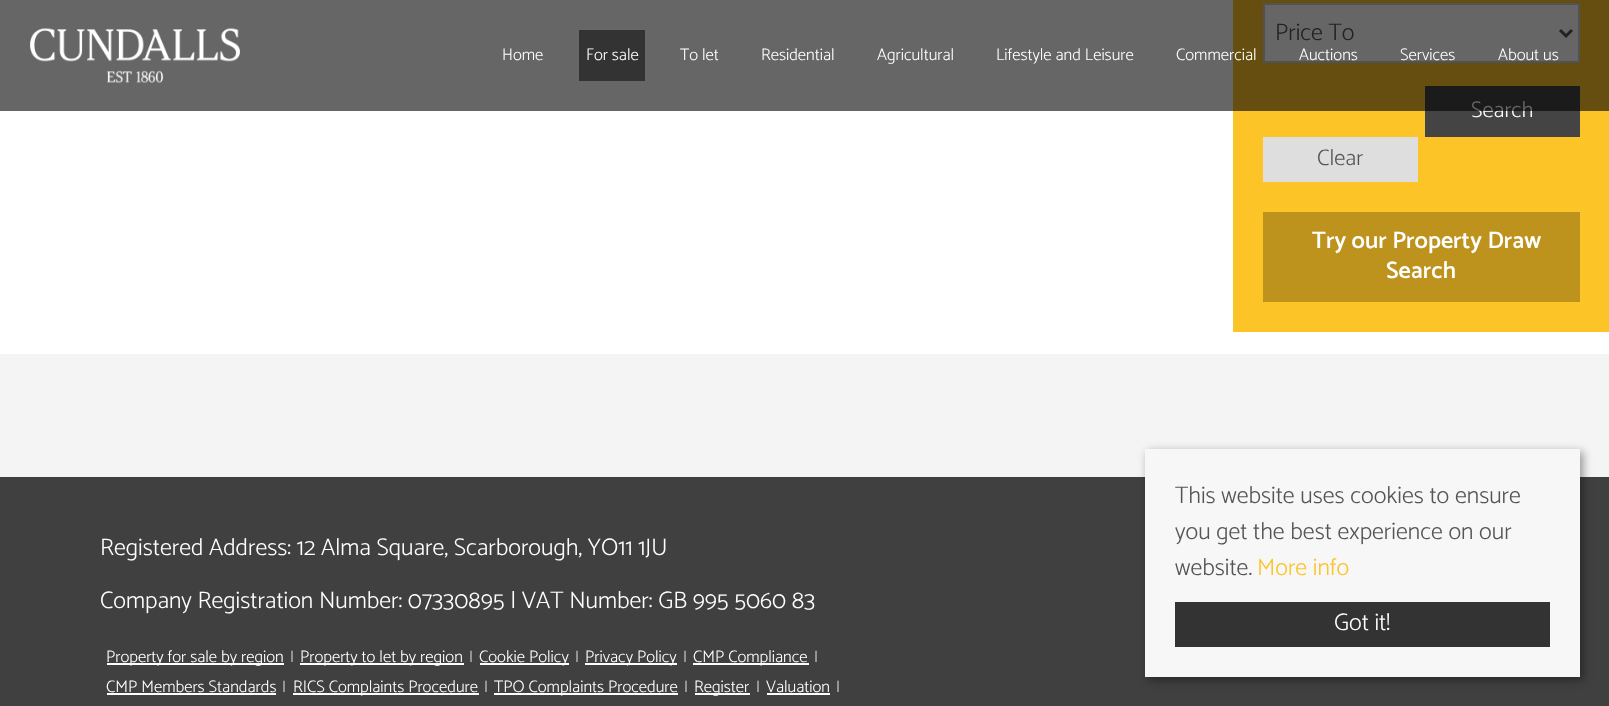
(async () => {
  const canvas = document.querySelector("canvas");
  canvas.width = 1609;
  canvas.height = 706;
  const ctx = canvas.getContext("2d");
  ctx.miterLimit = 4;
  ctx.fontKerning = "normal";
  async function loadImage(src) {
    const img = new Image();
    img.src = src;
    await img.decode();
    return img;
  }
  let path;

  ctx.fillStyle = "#ffffff";
  ctx.fillRect(0, 0, 1609, 706);
  ctx.fillStyle = "#fcc427";
  ctx.fillRect(1233, 0, 376, 332);
  ctx.fillStyle = "#ffffff";
  ctx.beginPath();
  ctx.rect(1264, 4, 315, 58);
  ctx.fill();
  ctx.strokeStyle = "#cccccc";
  ctx.lineWidth = 2;
  ctx.stroke();
  path = new Path2D("M1560 30L1566 36L1572 30");
  ctx.strokeStyle = "#555555";
  ctx.lineWidth = 3;
  ctx.stroke(path);
  for (const [x, y, w, h, color] of [
    [1425, 86, 155, 51, "#444444"],
    [1263, 137, 155, 45, "#dedede"],
    [1263, 212, 317, 90, "#bd931d"],
    [0, 354, 1609, 123, "#f4f4f4"],
    [0, 477, 1609, 229, "#404040"],
    [107, 663, 177, 2, "#ffffff"],
    [300, 663, 164, 2, "#ffffff"],
    [480, 663, 89, 2, "#ffffff"],
    [585, 663, 92, 2, "#ffffff"],
    [693, 663, 116, 2, "#ffffff"],
    [107, 693, 169, 2, "#ffffff"],
    [293, 693, 186, 2, "#ffffff"],
    [494, 693, 184, 2, "#ffffff"],
    [695, 693, 55, 2, "#ffffff"],
    [767, 693, 63, 2, "#ffffff"],
  ]) {
    ctx.fillStyle = color;
    ctx.fillRect(x, y, w, h);
  }
  ctx.fillStyle = "rgba(0, 0, 0, 0.4)";
  ctx.filter = "blur(5px)";
  ctx.beginPath();
  ctx.rect(1148, 452, 435, 228);
  ctx.fill();
  ctx.filter = "none";
  ctx.fillStyle = "#f7f7f7";
  ctx.fillRect(1145, 449, 435, 228);
  ctx.fillStyle = "#333333";
  ctx.fillRect(1175, 602, 375, 45);
  ctx.font = "300 24px Catamaran";
  ctx.fillStyle = "#555555";
  ctx.fillText("Price To", 1275, 40);
  ctx.font = "300 22.5px Catamaran";
  ctx.fillStyle = "#ffffff";
  ctx.fillText("Search", 1471, 117);
  ctx.fillStyle = "#555555";
  ctx.fillText("Clear", 1317, 165);
  ctx.font = "600 24px Catamaran";
  ctx.fillStyle = "#ffffff";
  ctx.fillText("Try our Property Draw", 1312, 248);
  ctx.fillText("Search", 1386, 278);
  ctx.fillStyle = "rgba(0, 0, 0, 0.6)";
  ctx.fillRect(0, 0, 1609, 111);
  ctx.drawImage(await loadImage("img/1.png"), 30, 28, 210, 55);
  ctx.font = "300 16.75px Catamaran";
  ctx.fillStyle = "#ffffff";
  ctx.fillText("Home", 502, 60);
  ctx.fillStyle = "#333333";
  ctx.fillRect(579, 30, 66, 51);
  ctx.fillStyle = "#ffffff";
  for (const [text, x, y] of [
    ["For sale", 586, 60],
    ["To let", 680, 60],
    ["Residential", 761, 60],
    ["Agricultural", 877, 60],
    ["Lifestyle and Leisure", 996, 60],
    ["Commercial", 1176, 60],
    ["Auctions", 1299, 60],
    ["Services", 1400, 60],
    ["About us", 1498, 60],
  ]) {
    ctx.fillText(text, x, y);
  }
  ctx.font = "300 24px Catamaran";
  ctx.fillText("Registered Address: 12 Alma Square, Scarborough, YO11 1JU", 100, 555);
  ctx.fillText("Company Registration Number: 07330895 | VAT Number: GB 995 5060 83", 100, 608);
  ctx.font = "300 16.75px Catamaran";
  ctx.fillText("Property for sale by region", 106, 662);
  ctx.font = "300 16px Catamaran";
  ctx.fillStyle = "#d9d9d9";
  ctx.fillText("|", 290, 662);
  ctx.font = "300 16.75px Catamaran";
  ctx.fillStyle = "#ffffff";
  ctx.fillText("Property to let by region", 300, 662);
  ctx.font = "300 16px Catamaran";
  ctx.fillStyle = "#d9d9d9";
  ctx.fillText("|", 469, 662);
  ctx.font = "300 16.75px Catamaran";
  ctx.fillStyle = "#ffffff";
  ctx.fillText("Cookie Policy", 479, 662);
  ctx.font = "300 16px Catamaran";
  ctx.fillStyle = "#d9d9d9";
  ctx.fillText("|", 575, 662);
  ctx.font = "300 16.75px Catamaran";
  ctx.fillStyle = "#ffffff";
  ctx.fillText("Privacy Policy", 585, 662);
  ctx.font = "300 16px Catamaran";
  ctx.fillStyle = "#d9d9d9";
  ctx.fillText("|", 683, 662);
  ctx.font = "300 16.75px Catamaran";
  ctx.fillStyle = "#ffffff";
  ctx.fillText("CMP Compliance", 693, 662);
  ctx.font = "300 16px Catamaran";
  ctx.fillStyle = "#d9d9d9";
  ctx.fillText("|", 814, 662);
  ctx.font = "300 16.75px Catamaran";
  ctx.fillStyle = "#ffffff";
  ctx.fillText("CMP Members Standards", 106, 692);
  ctx.font = "300 16px Catamaran";
  ctx.fillStyle = "#d9d9d9";
  ctx.fillText("|", 282, 692);
  ctx.font = "300 16.75px Catamaran";
  ctx.fillStyle = "#ffffff";
  ctx.fillText("RICS Complaints Procedure", 293, 692);
  ctx.font = "300 16px Catamaran";
  ctx.fillStyle = "#d9d9d9";
  ctx.fillText("|", 484, 692);
  ctx.font = "300 16.75px Catamaran";
  ctx.fillStyle = "#ffffff";
  ctx.fillText("TPO Complaints Procedure", 494, 692);
  ctx.font = "300 16px Catamaran";
  ctx.fillStyle = "#d9d9d9";
  ctx.fillText("|", 684, 692);
  ctx.font = "300 16.75px Catamaran";
  ctx.fillStyle = "#ffffff";
  ctx.fillText("Register", 694, 692);
  ctx.font = "300 16px Catamaran";
  ctx.fillStyle = "#d9d9d9";
  ctx.fillText("|", 756, 692);
  ctx.font = "300 16.75px Catamaran";
  ctx.fillStyle = "#ffffff";
  ctx.fillText("Valuation", 766, 692);
  ctx.font = "300 16px Catamaran";
  ctx.fillStyle = "#d9d9d9";
  ctx.fillText("|", 836, 692);
  ctx.font = "300 24px Catamaran";
  ctx.fillStyle = "#555555";
  for (const [text, x, y] of [
    ["This website uses cookies to ensure", 1175, 503],
    ["you get the best experience on our", 1175, 539],
    ["website.", 1175, 575],
  ]) {
    ctx.fillText(text, x, y);
  }
  ctx.fillStyle = "#fcc427";
  ctx.fillText("More info", 1257, 575);
  ctx.fillStyle = "#ffffff";
  ctx.fillText("Got it!", 1334, 630);
})();
